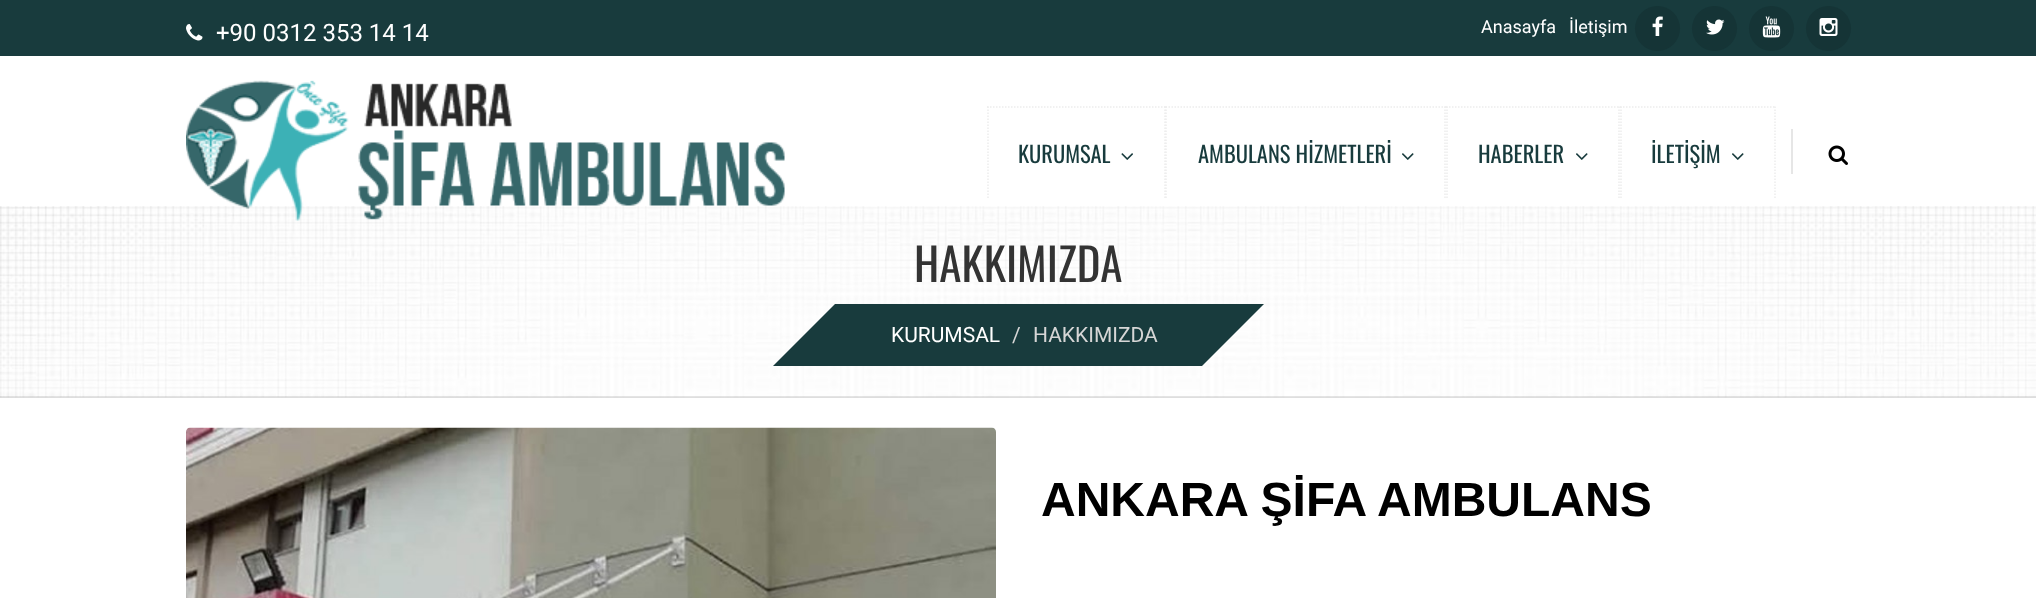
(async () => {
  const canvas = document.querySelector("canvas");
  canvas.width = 2036;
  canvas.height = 598;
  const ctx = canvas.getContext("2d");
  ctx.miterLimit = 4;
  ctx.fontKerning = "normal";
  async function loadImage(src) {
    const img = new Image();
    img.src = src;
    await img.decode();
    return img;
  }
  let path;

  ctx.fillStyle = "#183b3d";
  ctx.fillRect(0, 0, 2036, 598);
  ctx.drawImage(await loadImage("img/1.png"), 186, 24, 17, 17);
  ctx.fillStyle = "#153436";
  ctx.beginPath();
  ctx.arc(1657.5, 28.5, 22.5, 0, Math.PI * 2);
  ctx.fill();
  ctx.drawImage(await loadImage("img/2.png"), 1652, 16, 11, 20);
  ctx.beginPath();
  ctx.arc(1714.5, 28.5, 22.5, 0, Math.PI * 2);
  ctx.fill();
  ctx.drawImage(await loadImage("img/3.png"), 1706, 19, 19, 16);
  ctx.beginPath();
  ctx.arc(1771.5, 28.5, 22.5, 0, Math.PI * 2);
  ctx.fill();
  ctx.drawImage(await loadImage("img/4.png"), 1762, 16, 19, 22);
  ctx.beginPath();
  ctx.arc(1828.5, 28.5, 22.5, 0, Math.PI * 2);
  ctx.fill();
  ctx.drawImage(await loadImage("img/5.png"), 1819, 18, 19, 18);
  ctx.fillStyle = "#ffffff";
  ctx.fillRect(0, 56, 2036, 150);
  ctx.fillStyle = "#f2f2f2";
  ctx.fillRect(0, 397, 2036, 1);
  ctx.drawImage(await loadImage("img/10.png"), 0, 206, 2036, 192);
  ctx.drawImage(await loadImage("img/6.png"), 186, 80, 599, 141);
  path = new Path2D("M987 107H1165.5");
  ctx.strokeStyle = "#ededed";
  ctx.lineWidth = 1.5;
  ctx.setLineDash([1.5, 1.5]);
  ctx.stroke(path);
  path = new Path2D("M1165 106.5V198");
  ctx.stroke(path);
  path = new Path2D("M988 106.5V198");
  ctx.stroke(path);
  ctx.drawImage(await loadImage("img/7.png"), 1121, 153, 12, 7);
  path = new Path2D("M1165.5 107H1446");
  ctx.stroke(path);
  path = new Path2D("M1445 106.5V198");
  ctx.stroke(path);
  path = new Path2D("M1166 106.5V198");
  ctx.stroke(path);
  ctx.drawImage(await loadImage("img/8.png"), 1402, 153, 12, 7);
  path = new Path2D("M1446 107H1620");
  ctx.stroke(path);
  path = new Path2D("M1619 106.5V198");
  ctx.stroke(path);
  path = new Path2D("M1447 106.5V198");
  ctx.stroke(path);
  ctx.drawImage(await loadImage("img/8.png"), 1576, 153, 12, 7);
  path = new Path2D("M1620 107H1776");
  ctx.stroke(path);
  path = new Path2D("M1775 106.5V198");
  ctx.stroke(path);
  path = new Path2D("M1621 106.5V198");
  ctx.stroke(path);
  ctx.drawImage(await loadImage("img/8.png"), 1732, 153, 12, 7);
  ctx.fillStyle = "#e6e6e6";
  ctx.fillRect(1791, 129, 2, 45);
  ctx.drawImage(await loadImage("img/9.png"), 1828, 145, 20, 20);
  ctx.fillStyle = "#ffffff";
  ctx.fillRect(0, 398, 2036, 200);
  ctx.fillStyle = "rgba(0, 0, 0, 0.1)";
  ctx.fillRect(0, 396, 2036, 2);
  ctx.fillStyle = "#183b3d";
  path = new Path2D("M835 304H1264L1202 366H773Z");
  ctx.fill(path);
  ctx.drawImage(await loadImage("img/11.png"), 186, 427, 810, 171);
  ctx.font = "24px Roboto";
  ctx.fillStyle = "#ffffff";
  ctx.fillText("+90 0312 353 14 14", 216, 41);
  ctx.font = "18px Roboto";
  ctx.fillText("Anasayfa", 1481, 33);
  ctx.fillText("İletişim", 1569, 33);
  ctx.font = "22.5px Oswald";
  ctx.fillStyle = "#183b3d";
  for (const [text, x, y] of [
    ["KURUMSAL", 1018, 163],
    ["AMBULANS HİZMETLERİ", 1198, 163],
    ["HABERLER", 1478, 163],
    ["İLETİŞİM", 1651, 163],
  ]) {
    ctx.fillText(text, x, y);
  }
  ctx.font = "45px Oswald";
  ctx.fillStyle = "#333333";
  ctx.fillText("HAKKIMIZDA", 914, 282);
  ctx.font = "21px Roboto";
  ctx.fillStyle = "#ffffff";
  ctx.fillText("KURUMSAL", 891, 342);
  ctx.fillStyle = "#d6d6d6";
  ctx.fillText("/", 1012, 342);
  ctx.fillText("HAKKIMIZDA", 1033, 342);
  ctx.font = "bold 48px Liberation Sans";
  ctx.fillStyle = "#000000";
  ctx.fillText("ANKARA ŞİFA AMBULANS", 1041, 516);
})();
